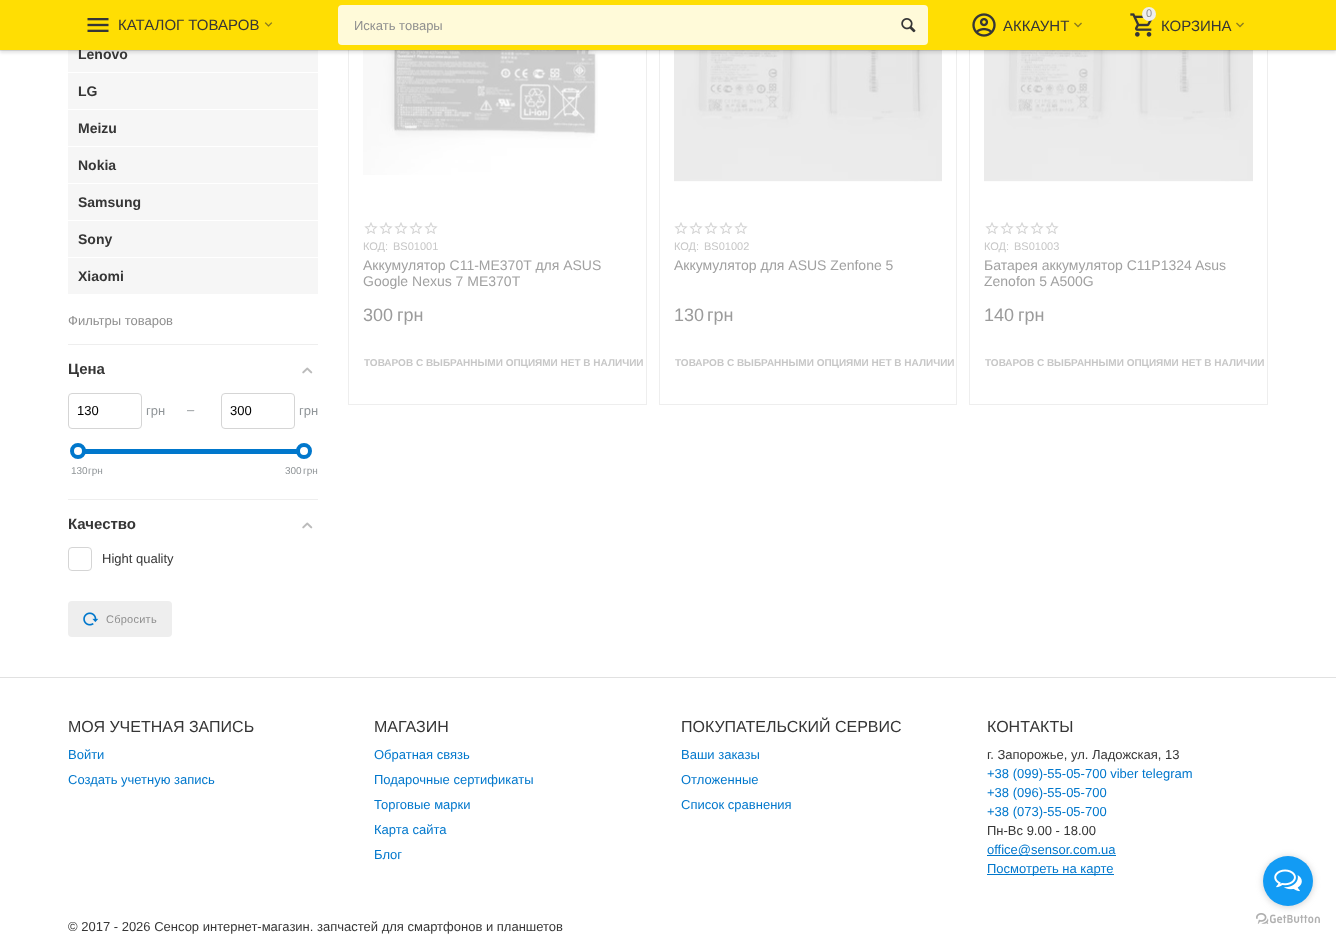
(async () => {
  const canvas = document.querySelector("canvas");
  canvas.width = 1336;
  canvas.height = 939;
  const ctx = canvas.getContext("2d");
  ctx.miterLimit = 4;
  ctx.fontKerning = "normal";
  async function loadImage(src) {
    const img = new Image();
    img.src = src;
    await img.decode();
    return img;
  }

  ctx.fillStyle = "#ffffff";
  ctx.fillRect(0, 0, 1336, 939);
  ctx.fillStyle = "#f6f6f6";
  ctx.fillRect(68, 50, 250, 244);
  ctx.strokeStyle = "#eeeeee";
  ctx.strokeRect(348.5, -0.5, 298, 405);
  ctx.drawImage(await loadImage("img/9.png"), 363, 50, 235, 125);
  ctx.strokeRect(659.5, -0.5, 297, 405);
  ctx.drawImage(await loadImage("img/11.png"), 674, 50, 268, 132);
  ctx.strokeRect(969.5, -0.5, 298, 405);
  ctx.drawImage(await loadImage("img/12.png"), 984, 50, 269, 132);
  ctx.fillStyle = "rgba(0, 0, 0, 0.1)";
  ctx.filter = "blur(1.5px)";
  ctx.beginPath();
  ctx.rect(0, 3, 1336, 50);
  ctx.fill();
  ctx.filter = "none";
  ctx.filter = "blur(0.5px)";
  ctx.beginPath();
  ctx.rect(0, 1, 1336, 50);
  ctx.fill();
  ctx.filter = "none";
  for (const [x, y, w, h, color] of [
    [68, 72, 250, 1, "#ffffff"],
    [68, 109, 250, 1, "#ffffff"],
    [68, 146, 250, 1, "#ffffff"],
    [68, 183, 250, 1, "#ffffff"],
    [68, 220, 250, 1, "#ffffff"],
    [68, 257, 250, 1, "#ffffff"],
    [68, 344, 250, 1, "#eeeeee"],
  ]) {
    ctx.fillStyle = color;
    ctx.fillRect(x, y, w, h);
  }
  ctx.drawImage(await loadImage("img/7.png"), 302, 367, 11, 7);
  ctx.beginPath();
  ctx.roundRect(68.5, 393.5, 73, 35, 3.5);
  ctx.strokeStyle = "#d5d5d5";
  ctx.stroke();
  ctx.beginPath();
  ctx.roundRect(221.5, 393.5, 73, 35, 3.5);
  ctx.stroke();
  ctx.fillStyle = "#0077cc";
  ctx.fillRect(80, 449, 217, 5);
  ctx.fillStyle = "#ffffff";
  ctx.beginPath();
  ctx.arc(78, 451, 6, 0, Math.PI * 2);
  ctx.fill();
  ctx.strokeStyle = "#0077cc";
  ctx.lineWidth = 4;
  ctx.stroke();
  ctx.beginPath();
  ctx.arc(304, 451, 6, 0, Math.PI * 2);
  ctx.fill();
  ctx.stroke();
  ctx.fillStyle = "#eeeeee";
  ctx.fillRect(68, 499, 250, 1);
  ctx.drawImage(await loadImage("img/7.png"), 302, 522, 11, 7);
  ctx.beginPath();
  ctx.roundRect(68.5, 547.5, 23, 23, 3.5);
  ctx.strokeStyle = "#d5d5d5";
  ctx.lineWidth = 1;
  ctx.stroke();
  ctx.beginPath();
  ctx.roundRect(68, 601, 104, 36, 4);
  ctx.fill();
  ctx.drawImage(await loadImage("img/8.png"), 83, 612, 16, 14);
  ctx.drawImage(await loadImage("img/10.png"), 364, 222, 14, 12);
  ctx.drawImage(await loadImage("img/10.png"), 379, 222, 14, 12);
  ctx.drawImage(await loadImage("img/10.png"), 394, 222, 14, 12);
  ctx.drawImage(await loadImage("img/10.png"), 409, 222, 14, 12);
  ctx.drawImage(await loadImage("img/10.png"), 424, 222, 14, 12);
  ctx.drawImage(await loadImage("img/10.png"), 674, 222, 14, 12);
  ctx.drawImage(await loadImage("img/10.png"), 689, 222, 14, 12);
  ctx.drawImage(await loadImage("img/10.png"), 704, 222, 14, 12);
  ctx.drawImage(await loadImage("img/10.png"), 719, 222, 14, 12);
  ctx.drawImage(await loadImage("img/10.png"), 734, 222, 14, 12);
  ctx.drawImage(await loadImage("img/10.png"), 985, 222, 14, 12);
  ctx.drawImage(await loadImage("img/10.png"), 1000, 222, 14, 12);
  ctx.drawImage(await loadImage("img/10.png"), 1015, 222, 14, 12);
  ctx.drawImage(await loadImage("img/10.png"), 1030, 222, 14, 12);
  ctx.drawImage(await loadImage("img/10.png"), 1045, 222, 14, 12);
  for (const [x, y, w, h, color] of [
    [0, 677, 1336, 1, "#e1e1e1"],
    [987, 855, 129, 1, "#0077cc"],
    [987, 874, 127, 1, "#0077cc"],
  ]) {
    ctx.fillStyle = color;
    ctx.fillRect(x, y, w, h);
  }
  ctx.drawImage(await loadImage("img/14.png"), 1256, 913, 64, 11);
  ctx.fillStyle = "rgba(136, 136, 136, 0.4)";
  ctx.filter = "blur(3.5px)";
  ctx.beginPath();
  ctx.roundRect(1263, 857, 50, 50, 25);
  ctx.fill();
  ctx.filter = "none";
  ctx.fillStyle = "#129bf4";
  ctx.beginPath();
  ctx.arc(1288, 881, 25, 0, Math.PI * 2);
  ctx.fill();
  ctx.drawImage(await loadImage("img/13.png"), 1274, 869, 28, 23);
  ctx.font = "bold 14px Liberation Sans";
  ctx.fillStyle = "#363636";
  ctx.fillText("Lenovo", 78, 59);
  ctx.fillStyle = "#ffde03";
  ctx.fillRect(0, 0, 1336, 50);
  ctx.drawImage(await loadImage("img/6.png"), 1130, 13, 23, 24);
  ctx.fillStyle = "#eeeeee";
  ctx.beginPath();
  ctx.arc(1149, 14, 7, 0, Math.PI * 2);
  ctx.fill();
  ctx.font = "11px Liberation Sans";
  ctx.fillStyle = "#8f8f8f";
  ctx.fillText("0", 1146, 17);
  ctx.drawImage(await loadImage("img/5.png"), 1074, 22, 8, 6);
  ctx.drawImage(await loadImage("img/4.png"), 972, 13, 24, 24);
  ctx.font = "15px Liberation Sans";
  ctx.fillStyle = "#363636";
  ctx.fillText("АККАУНТ", 1003, 31);
  ctx.drawImage(await loadImage("img/5.png"), 1236, 22, 8, 6);
  ctx.fillText("КОРЗИНА", 1161, 31);
  ctx.fillStyle = "#fffad9";
  ctx.beginPath();
  ctx.roundRect(338, 5, 590, 40, 4);
  ctx.fill();
  ctx.drawImage(await loadImage("img/3.png"), 901, 18, 15, 15);
  ctx.font = "13px Liberation Sans";
  ctx.fillStyle = "#8f8f8f";
  ctx.fillText("Искать товары", 354, 30);
  ctx.drawImage(await loadImage("img/2.png"), 264, 22, 9, 5);
  ctx.drawImage(await loadImage("img/1.png"), 87, 18, 22, 14);
  ctx.font = "15px Liberation Sans";
  ctx.fillStyle = "#363636";
  ctx.fillText("КАТАЛОГ ТОВАРОВ", 118, 30);
  ctx.font = "bold 14px Liberation Sans";
  for (const [text, x, y] of [
    ["LG", 78, 96],
    ["Meizu", 78, 133],
    ["Nokia", 78, 170],
    ["Samsung", 78, 207],
    ["Sony", 78, 244],
    ["Xiaomi", 78, 281],
  ]) {
    ctx.fillText(text, x, y);
  }
  ctx.font = "13px Liberation Sans";
  ctx.fillStyle = "#8f8f8f";
  ctx.fillText("Фильтры товаров", 68, 325);
  ctx.font = "bold 15px Liberation Sans";
  ctx.fillStyle = "#363636";
  ctx.fillText("Цена", 68, 374);
  ctx.font = "13px Liberation Sans";
  ctx.fillStyle = "#000000";
  ctx.fillText("130", 77, 415);
  ctx.fillStyle = "#909598";
  ctx.fillText("грн", 146, 415);
  ctx.fillText("–", 187, 414);
  ctx.fillStyle = "#000000";
  ctx.fillText("300", 230, 415);
  ctx.fillStyle = "#909598";
  ctx.fillText("грн", 299, 415);
  ctx.font = "10px Liberation Sans";
  for (const [text, x, y] of [
    ["130", 71, 474],
    ["грн", 88, 474],
    ["300", 285, 474],
    ["грн", 303, 474],
  ]) {
    ctx.fillText(text, x, y);
  }
  ctx.font = "bold 15px Liberation Sans";
  ctx.fillStyle = "#363636";
  ctx.fillText("Качество", 68, 529);
  ctx.font = "13px Liberation Sans";
  ctx.fillText("Hight quality", 102, 563);
  ctx.letterSpacing = "0.25px";
  ctx.font = "11px Liberation Sans";
  ctx.fillStyle = "#8f8f8f";
  ctx.fillText("Сбросить", 106, 623);
  ctx.save();
  ctx.beginPath();
  ctx.rect(363, 240, 269, 12);
  ctx.clip();
  ctx.letterSpacing = "0px";
  ctx.fillStyle = "#c7c7c7";
  ctx.fillText("КОД:", 363, 250);
  ctx.restore();
  ctx.letterSpacing = "0px";
  ctx.fillStyle = "#c7c7c7";
  ctx.fillText("BS01001", 393, 250);
  ctx.font = "14px Liberation Sans";
  ctx.fillStyle = "#a1a1a1";
  ctx.fillText("Аккумулятор C11-ME370T для ASUS", 363, 270);
  ctx.fillText("Google Nexus 7 ME370T", 363, 286);
  ctx.font = "18px Liberation Sans";
  ctx.fillStyle = "#9b9b9b";
  ctx.fillText("300", 363, 321);
  ctx.fillText("грн", 397, 321);
  ctx.font = "bold 10px Liberation Sans";
  ctx.fillStyle = "#c7c7c7";
  ctx.fillText("ТОВАРОВ С ВЫБРАННЫМИ ОПЦИЯМИ НЕТ В НАЛИЧИИ", 364, 366);
  ctx.save();
  ctx.beginPath();
  ctx.rect(674, 240, 268, 12);
  ctx.clip();
  ctx.font = "11px Liberation Sans";
  ctx.fillText("КОД:", 674, 250);
  ctx.restore();
  ctx.font = "11px Liberation Sans";
  ctx.fillText("BS01002", 704, 250);
  ctx.font = "14px Liberation Sans";
  ctx.fillStyle = "#a1a1a1";
  ctx.fillText("Аккумулятор для ASUS Zenfone 5", 674, 270);
  ctx.font = "18px Liberation Sans";
  ctx.fillStyle = "#9b9b9b";
  ctx.fillText("130", 674, 321);
  ctx.fillText("грн", 707, 321);
  ctx.font = "bold 10px Liberation Sans";
  ctx.fillStyle = "#c7c7c7";
  ctx.fillText("ТОВАРОВ С ВЫБРАННЫМИ ОПЦИЯМИ НЕТ В НАЛИЧИИ", 675, 366);
  ctx.font = "11px Liberation Sans";
  ctx.fillText("КОД:", 984, 250);
  ctx.fillText("BS01003", 1014, 250);
  ctx.font = "14px Liberation Sans";
  ctx.fillStyle = "#a1a1a1";
  ctx.fillText("Батарея аккумулятор C11P1324 Asus", 984, 270);
  ctx.fillText("Zenofon 5 A500G", 984, 286);
  ctx.font = "18px Liberation Sans";
  ctx.fillStyle = "#9b9b9b";
  ctx.fillText("140", 984, 321);
  ctx.fillText("грн", 1018, 321);
  ctx.font = "bold 10px Liberation Sans";
  ctx.fillStyle = "#c7c7c7";
  ctx.fillText("ТОВАРОВ С ВЫБРАННЫМИ ОПЦИЯМИ НЕТ В НАЛИЧИИ", 985, 366);
  ctx.font = "16px Liberation Sans";
  ctx.fillStyle = "#363636";
  ctx.fillText("МОЯ УЧЕТНАЯ ЗАПИСЬ", 68, 732);
  ctx.font = "13px Liberation Sans";
  ctx.fillStyle = "#0077cc";
  ctx.fillText("Войти", 68, 759);
  ctx.fillText("Создать учетную запись", 68, 784);
  ctx.font = "16px Liberation Sans";
  ctx.fillStyle = "#363636";
  ctx.fillText("МАГАЗИН", 374, 732);
  ctx.font = "13px Liberation Sans";
  ctx.fillStyle = "#0077cc";
  for (const [text, x, y] of [
    ["Обратная связь", 374, 759],
    ["Подарочные сертификаты", 374, 784],
    ["Торговые марки", 374, 809],
    ["Карта сайта", 374, 834],
    ["Блог", 374, 859],
  ]) {
    ctx.fillText(text, x, y);
  }
  ctx.font = "16px Liberation Sans";
  ctx.fillStyle = "#363636";
  ctx.fillText("ПОКУПАТЕЛЬСКИЙ СЕРВИС", 681, 732);
  ctx.font = "13px Liberation Sans";
  ctx.fillStyle = "#0077cc";
  for (const [text, x, y] of [
    ["Ваши заказы", 681, 759],
    ["Отложенные", 681, 784],
    ["Список сравнения", 681, 809],
  ]) {
    ctx.fillText(text, x, y);
  }
  ctx.font = "16px Liberation Sans";
  ctx.fillStyle = "#363636";
  ctx.fillText("КОНТАКТЫ", 987, 732);
  ctx.font = "13px Liberation Sans";
  ctx.fillText("г. Запорожье, ул. Ладожская, 13", 987, 759);
  ctx.fillStyle = "#0077cc";
  for (const [text, x, y] of [
    ["+38 (099)-55-05-700 viber telegram", 987, 778],
    ["+38 (096)-55-05-700", 987, 797],
    ["+38 (073)-55-05-700", 987, 816],
  ]) {
    ctx.fillText(text, x, y);
  }
  ctx.fillStyle = "#363636";
  ctx.fillText("Пн-Вс 9.00 - 18.00", 987, 835);
  ctx.fillStyle = "#0077cc";
  ctx.fillText("office@sensor.com.ua", 987, 854);
  ctx.fillText("Посмотреть на карте", 987, 873);
  ctx.fillStyle = "#363636";
  ctx.fillText("© 2017 - 2026 Сенсор интернет-магазин. запчастей для смартфонов и планшетов", 68, 931);
})();
